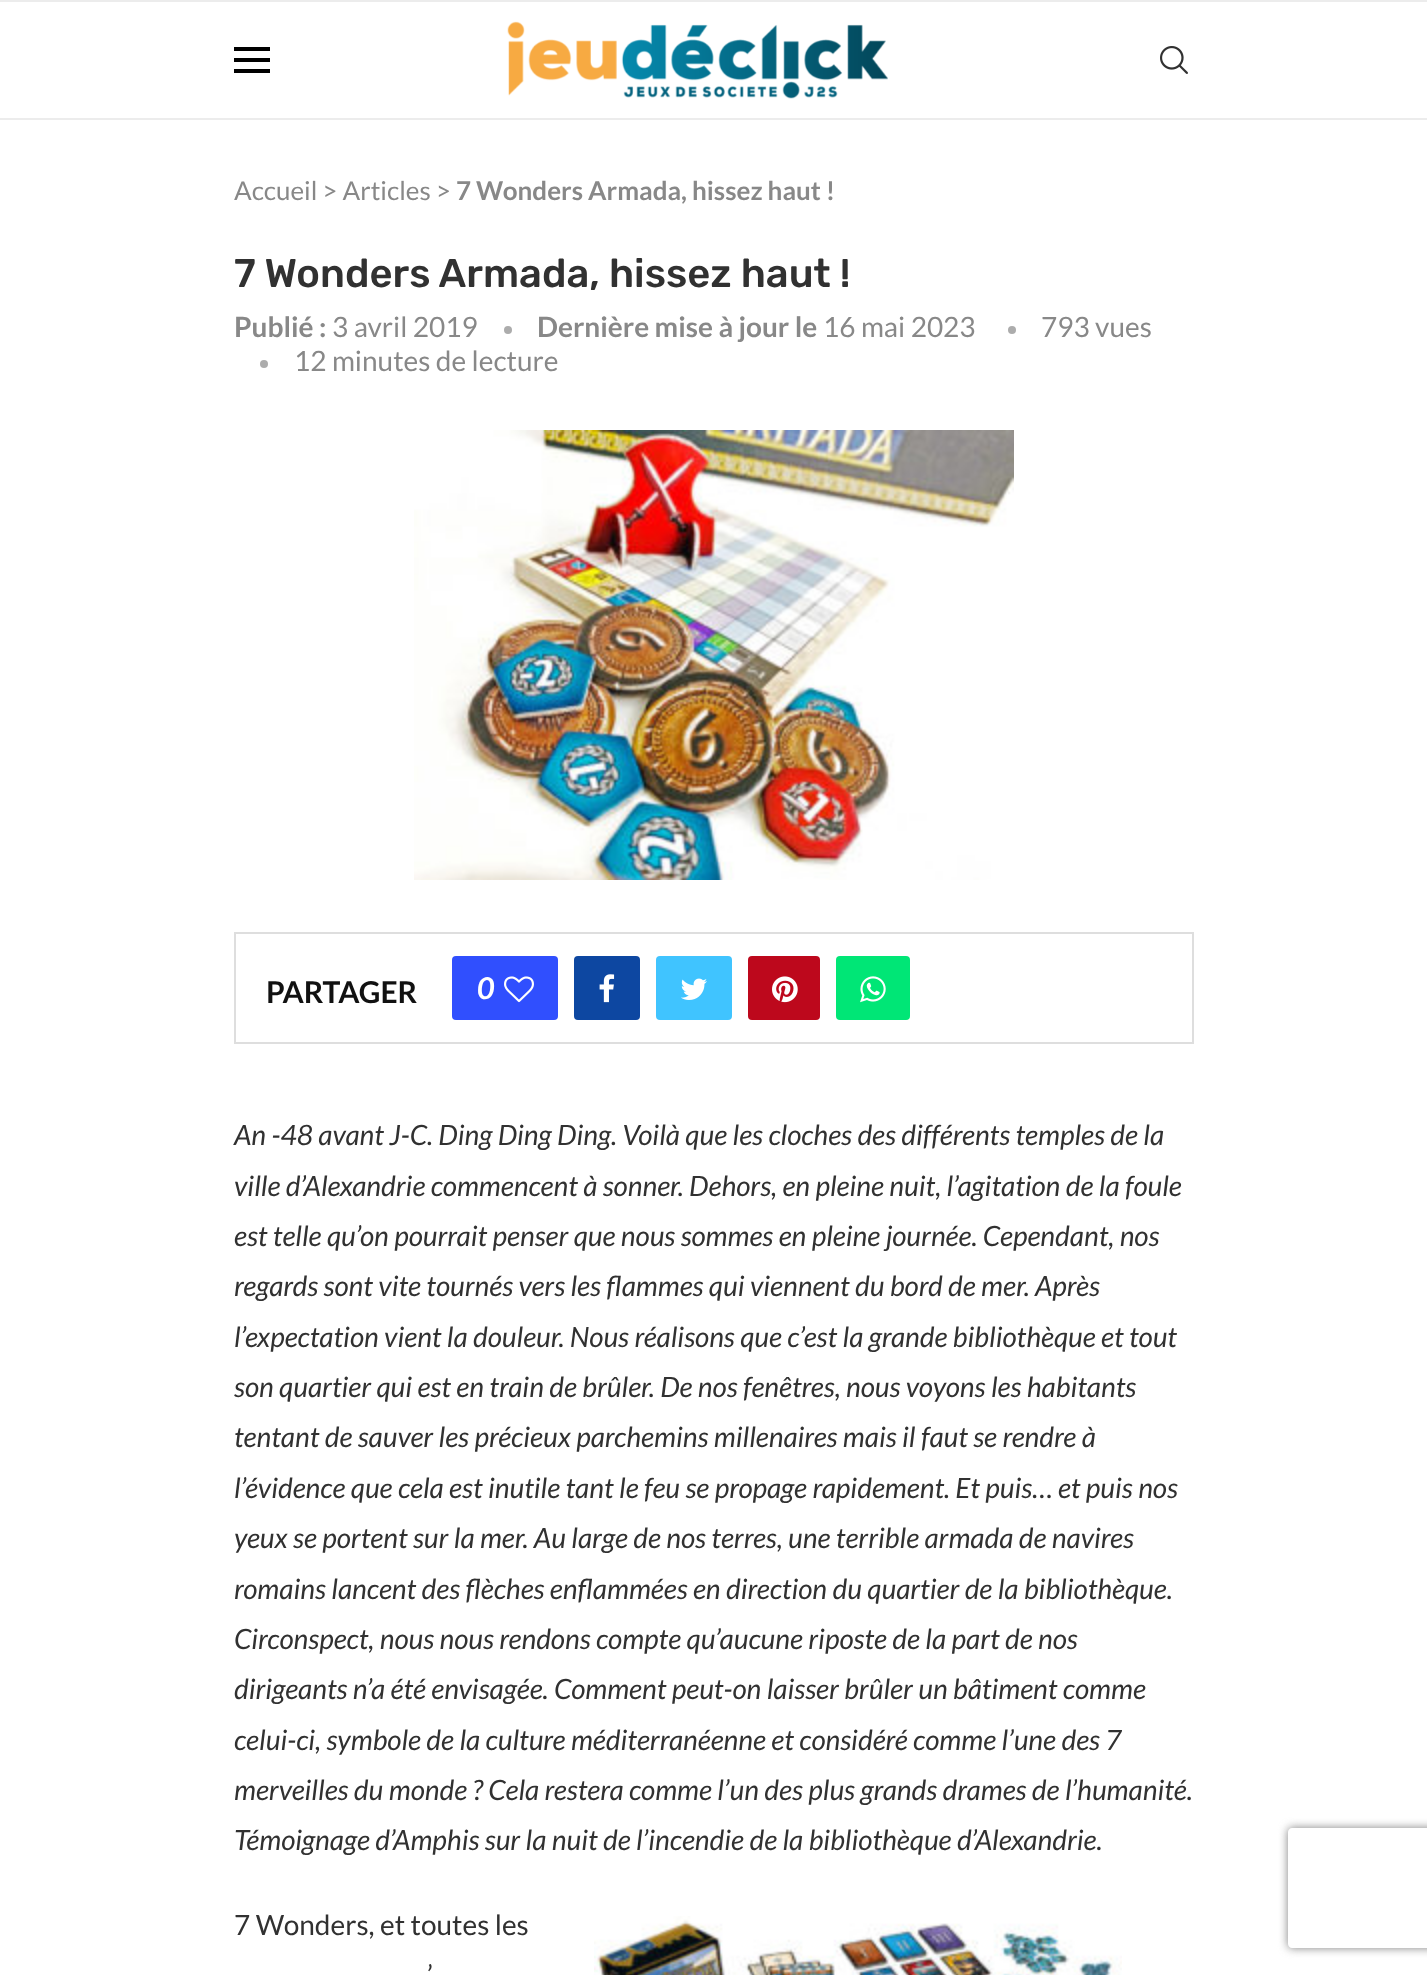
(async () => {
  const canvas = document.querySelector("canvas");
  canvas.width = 1427;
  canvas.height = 1975;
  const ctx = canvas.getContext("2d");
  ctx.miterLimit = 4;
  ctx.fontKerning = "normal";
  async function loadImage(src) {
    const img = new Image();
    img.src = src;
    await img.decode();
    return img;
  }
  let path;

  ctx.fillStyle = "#ffffff";
  ctx.fillRect(0, 0, 1427, 1975);
  for (const [x, y, w, h, color] of [
    [0, 0, 1427, 2, "#ececec"],
    [0, 118, 1427, 2, "#ececec"],
    [234, 47, 36, 4, "#000000"],
    [234, 58, 36, 4, "#000000"],
    [234, 69, 36, 4, "#000000"],
  ]) {
    ctx.fillStyle = color;
    ctx.fillRect(x, y, w, h);
  }
  ctx.drawImage(await loadImage("img/1.png"), 507, 21, 381, 78);
  ctx.drawImage(await loadImage("img/2.png"), 1160, 46, 28, 28);
  ctx.fillStyle = "#acacac";
  ctx.beginPath();
  ctx.arc(508, 330, 4, 0, Math.PI * 2);
  ctx.fill();
  ctx.beginPath();
  ctx.arc(1012, 330, 4, 0, Math.PI * 2);
  ctx.fill();
  ctx.beginPath();
  ctx.arc(264, 364, 4, 0, Math.PI * 2);
  ctx.fill();
  ctx.drawImage(await loadImage("img/3.png"), 414, 430, 600, 450);
  ctx.strokeStyle = "#dedede";
  ctx.lineWidth = 2;
  ctx.strokeRect(235, 933, 958, 110);
  ctx.fillStyle = "#304ffe";
  ctx.beginPath();
  ctx.roundRect(452, 956, 106, 64, 4);
  ctx.fill();
  ctx.drawImage(await loadImage("img/4.png"), 504, 976, 30, 27);
  ctx.fillStyle = "#0d47a1";
  ctx.beginPath();
  ctx.roundRect(574, 956, 66, 64, 4);
  ctx.fill();
  ctx.drawImage(await loadImage("img/5.png"), 599, 974, 16, 29);
  ctx.fillStyle = "#40c4ff";
  ctx.beginPath();
  ctx.roundRect(656, 956, 76, 64, 4);
  ctx.fill();
  ctx.drawImage(await loadImage("img/6.png"), 681, 978, 26, 22);
  ctx.fillStyle = "#bd081c";
  ctx.beginPath();
  ctx.roundRect(748, 956, 72, 64, 4);
  ctx.fill();
  ctx.drawImage(await loadImage("img/7.png"), 772, 976, 26, 27);
  ctx.fillStyle = "#00e676";
  ctx.beginPath();
  ctx.roundRect(836, 956, 74, 64, 4);
  ctx.fill();
  ctx.drawImage(await loadImage("img/8.png"), 860, 976, 26, 27);
  ctx.drawImage(await loadImage("img/9.png"), 594, 1916, 528, 59);
  ctx.save();
  path = new Path2D("M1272 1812H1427V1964H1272ZM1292 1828H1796C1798 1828 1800 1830 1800 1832V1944C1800 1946 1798 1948 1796 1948H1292C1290 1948 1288 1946 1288 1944V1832C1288 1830 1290 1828 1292 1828Z");
  ctx.clip(path, "evenodd");
  ctx.fillStyle = "#808080";
  ctx.filter = "blur(5px)";
  ctx.beginPath();
  ctx.roundRect(1288, 1828, 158, 120, 4);
  ctx.fill();
  ctx.filter = "none";
  ctx.restore();
  ctx.font = "26px Lato";
  ctx.fillStyle = "#888888";
  ctx.fillText("Accueil > Articles >", 234, 200);
  ctx.font = "bold 26px Lato";
  ctx.fillText("7 Wonders Armada, hissez haut !", 456, 200);
  ctx.font = "500 40px Rubik";
  ctx.fillStyle = "#313131";
  ctx.fillText("7 Wonders Armada, hissez haut !", 234, 287);
  ctx.font = "bold 28px Lato";
  ctx.fillStyle = "#888888";
  ctx.fillText("Publié :", 234, 337);
  ctx.font = "28px Lato";
  ctx.fillText("3 avril 2019", 332, 337);
  ctx.font = "bold 28px Lato";
  ctx.fillText("Dernière mise à jour le", 537, 337);
  ctx.font = "28px Lato";
  for (const [text, x, y] of [
    ["16 mai 2023", 823, 337],
    ["793 vues", 1041, 337],
    ["12 minutes de lecture", 294, 371],
  ]) {
    ctx.fillText(text, x, y);
  }
  ctx.font = "bold 30px Lato";
  ctx.fillStyle = "#111111";
  ctx.fillText("PARTAGER", 266, 1003);
  ctx.font = "italic bold 30px Lato";
  ctx.fillStyle = "#ffffff";
  ctx.fillText("0", 477, 999);
  ctx.font = "italic 28px Lato";
  ctx.fillStyle = "#313131";
  for (const [text, x, y] of [
    ["An -48 avant J-C. Ding Ding Ding. Voilà que les cloches des différents temples de la", 234, 1145],
    ["ville d’Alexandrie commencent à sonner. Dehors, en pleine nuit, l’agitation de la foule", 234, 1196],
    ["est telle qu’on pourrait penser que nous sommes en pleine journée. Cependant, nos", 234, 1246],
    ["regards sont vite tournés vers les flammes qui viennent du bord de mer. Après", 234, 1296],
    ["l’expectation vient la douleur. Nous réalisons que c’est la grande bibliothèque et tout", 234, 1347],
    ["son quartier qui est en train de brûler. De nos fenêtres, nous voyons les habitants", 234, 1397],
    ["tentant de sauver les précieux parchemins millenaires mais il faut se rendre à", 234, 1447],
    ["l’évidence que cela est inutile tant le feu se propage rapidement. Et puis… et puis nos", 234, 1498],
    ["yeux se portent sur la mer. Au large de nos terres, une terrible armada de navires", 234, 1548],
    ["romains lancent des flèches enflammées en direction du quartier de la bibliothèque.", 234, 1599],
    ["Circonspect, nous nous rendons compte qu’aucune riposte de la part de nos", 234, 1649],
    ["dirigeants n’a été envisagée. Comment peut-on laisser brûler un bâtiment comme", 234, 1699],
    ["celui-ci, symbole de la culture méditerranéenne et considéré comme l’une des 7", 234, 1750],
    ["merveilles du monde ? Cela restera comme l’un des plus grands drames de l’humanité.", 234, 1800],
    ["Témoignage d’Amphis sur la nuit de l’incendie de la bibliothèque d’Alexandrie.", 234, 1850],
  ]) {
    ctx.fillText(text, x, y);
  }
  ctx.font = "28px Lato";
  ctx.fillText("7 Wonders, et toutes les", 234, 1935);
  ctx.fillText("’", 427, 1985);
})();
